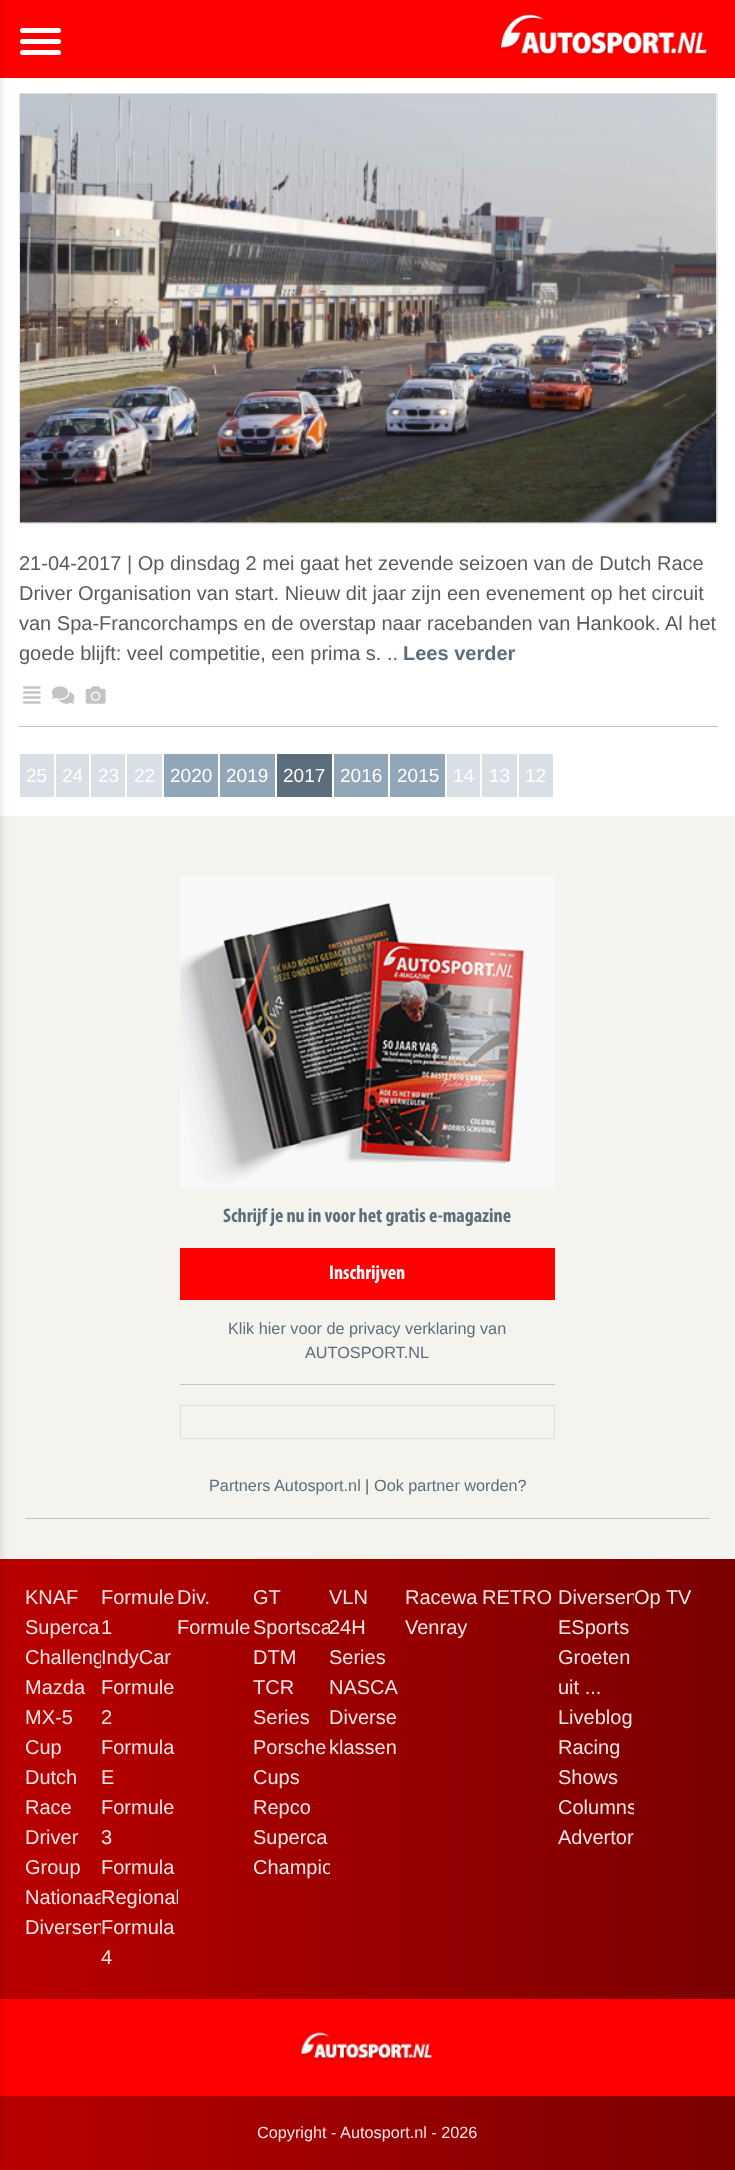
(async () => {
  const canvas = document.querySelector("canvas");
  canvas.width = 735;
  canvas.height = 2170;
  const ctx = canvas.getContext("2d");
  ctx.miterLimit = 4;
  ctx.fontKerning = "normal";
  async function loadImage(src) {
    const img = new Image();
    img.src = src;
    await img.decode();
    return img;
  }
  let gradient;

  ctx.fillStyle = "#f4f3ed";
  ctx.fillRect(0, 0, 735, 2170);
  ctx.fillStyle = "#ff0000";
  ctx.fillRect(0, 0, 735, 78);
  ctx.drawImage(await loadImage("img/1.png"), 499, 14, 209, 42);
  ctx.fillStyle = "#ffffff";
  ctx.fillRect(0, 78, 735, 738);
  gradient = ctx.createLinearGradient(0, 1779, 735, 1779);
  gradient.addColorStop(0, "#ba0000");
  gradient.addColorStop(1, "#7a0000");
  ctx.fillStyle = gradient;
  ctx.fillRect(0, 1559, 735, 440);
  ctx.fillStyle = "#ff0000";
  ctx.fillRect(0, 1999, 735, 97);
  gradient = ctx.createLinearGradient(0, 2133, 735, 2133);
  gradient.addColorStop(0, "#ba0000");
  gradient.addColorStop(1, "#7a0000");
  ctx.fillStyle = gradient;
  ctx.fillRect(0, 2096, 735, 74);
  ctx.fillStyle = "rgba(0, 0, 0, 0.15)";
  ctx.filter = "blur(5px)";
  ctx.beginPath();
  ctx.rect(-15, 0, 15, 2170);
  ctx.fill();
  ctx.filter = "none";
  ctx.fillStyle = "#ffffff";
  ctx.beginPath();
  ctx.roundRect(20, 28, 41, 5, 2.5);
  ctx.fill();
  ctx.beginPath();
  ctx.roundRect(20, 39, 41, 5, 2.5);
  ctx.fill();
  ctx.beginPath();
  ctx.roundRect(20, 50, 41, 5, 2.5);
  ctx.fill();
  ctx.fillStyle = "#c4c4c4";
  ctx.fillRect(19, 726, 699, 1);
  ctx.strokeStyle = "#e4e4e4";
  ctx.strokeRect(19.5, 93.5, 698, 430);
  ctx.drawImage(await loadImage("img/2.png"), 20, 93, 697, 430);
  ctx.drawImage(await loadImage("img/3.png"), 23, 686, 18, 18);
  ctx.drawImage(await loadImage("img/4.png"), 51, 686, 24, 18);
  ctx.drawImage(await loadImage("img/5.png"), 85, 686, 21, 18);
  for (const [x, y, w, h, color] of [
    [20, 754, 34, 43, "#d8e0e6"],
    [56, 754, 33, 43, "#d8e0e6"],
    [91, 754, 34, 43, "#d8e0e6"],
    [127, 754, 35, 43, "#d8e0e6"],
    [164, 754, 54, 43, "#91a6b6"],
    [220, 754, 55, 43, "#91a6b6"],
    [277, 754, 55, 43, "#5c6e7b"],
    [334, 754, 54, 43, "#91a6b6"],
    [390, 754, 55, 43, "#91a6b6"],
    [447, 754, 33, 43, "#d8e0e6"],
    [482, 754, 35, 43, "#d8e0e6"],
    [519, 754, 34, 43, "#d8e0e6"],
    [180, 1384, 375, 1, "#c4c4c4"],
  ]) {
    ctx.fillStyle = color;
    ctx.fillRect(x, y, w, h);
  }
  ctx.drawImage(await loadImage("img/6.png"), 180, 876, 375, 313);
  ctx.fillStyle = "#ff0000";
  ctx.fillRect(180, 1248, 375, 52);
  ctx.strokeStyle = "#dddddd";
  ctx.strokeRect(180.5, 1405.5, 374, 33);
  ctx.fillStyle = "#c4c4c4";
  ctx.fillRect(25, 1518, 685, 1);
  ctx.drawImage(await loadImage("img/7.png"), 299, 2031, 134, 31);
  ctx.font = "20px Liberation Sans";
  ctx.fillStyle = "#5a5a5a";
  for (const [text, x, y] of [
    ["21-04-2017", 19, 570],
    ["| Op dinsdag 2 mei gaat het zevende seizoen van de Dutch Race", 127, 570],
    ["Driver Organisation van start. Nieuw dit jaar zijn een evenement op het circuit", 19, 600],
    ["van Spa-Francorchamps en de overstap naar racebanden van Hankook. Al het", 19, 630],
    ["goede blijft: veel competitie, een prima s. ..", 19, 660],
  ]) {
    ctx.fillText(text, x, y);
  }
  ctx.font = "bold 20px Liberation Sans";
  ctx.fillStyle = "#5c6e7b";
  ctx.fillText("Lees verder", 403, 660);
  ctx.font = "19px Liberation Sans";
  ctx.fillStyle = "#ffffff";
  for (const [text, x, y] of [
    ["25", 26, 782],
    ["24", 62, 782],
    ["23", 98, 782],
    ["22", 134, 782],
    ["2020", 170, 782],
    ["2019", 226, 782],
    ["2017", 283, 782],
    ["2016", 340, 782],
    ["2015", 397, 782],
    ["14", 453, 782],
    ["13", 489, 782],
    ["12", 525, 782],
  ]) {
    ctx.fillText(text, x, y);
  }
  ctx.font = "bold 20px Myriad";
  ctx.fillStyle = "#5c6e7b";
  ctx.fillText("Schrijf je nu in voor het gratis e-magazine", 223, 1222);
  ctx.fillStyle = "#ffffff";
  ctx.fillText("Inschrijven", 329, 1279);
  ctx.font = "16.25px Liberation Sans";
  ctx.fillStyle = "#5c6e7b";
  for (const [text, x, y] of [
    ["Klik hier voor de privacy verklaring van", 228, 1334],
    ["AUTOSPORT.NL", 305, 1358],
    ["Partners Autosport.nl", 209, 1491],
  ]) {
    ctx.fillText(text, x, y);
  }
  ctx.fillStyle = "#5a5a5a";
  ctx.fillText("|", 365, 1491);
  ctx.fillStyle = "#5c6e7b";
  ctx.fillText("Ook partner worden?", 374, 1491);
  ctx.font = "20px Liberation Sans";
  ctx.fillStyle = "#f8e6e6";
  ctx.fillText("KNAF", 25, 1604);
  ctx.fillText("Superca", 25, 1634);
  ctx.save();
  ctx.beginPath();
  ctx.rect(25, 1584, 76, 360);
  ctx.clip();
  ctx.fillText("Challeng", 25, 1664);
  ctx.restore();
  for (const [text, x, y] of [
    ["Mazda", 25, 1694],
    ["MX-5", 25, 1724],
    ["Cup", 25, 1754],
    ["Dutch", 25, 1784],
    ["Race", 25, 1814],
    ["Driver", 25, 1844],
    ["Group", 25, 1874],
  ]) {
    ctx.fillText(text, x, y);
  }
  ctx.save();
  ctx.beginPath();
  ctx.rect(25, 1584, 76, 360);
  ctx.clip();
  ctx.fillText("Nationaa", 25, 1904);
  ctx.fillText("Diversen", 25, 1934);
  ctx.restore();
  for (const [text, x, y] of [
    ["Formule", 101, 1604],
    ["1", 101, 1634],
    ["IndyCar", 101, 1664],
    ["Formule", 101, 1694],
    ["2", 101, 1724],
    ["Formula", 101, 1754],
    ["E", 101, 1784],
    ["Formule", 101, 1814],
    ["3", 101, 1844],
    ["Formula", 101, 1874],
  ]) {
    ctx.fillText(text, x, y);
  }
  ctx.save();
  ctx.beginPath();
  ctx.rect(101, 1584, 77, 390);
  ctx.clip();
  ctx.fillText("Regional", 101, 1904);
  ctx.restore();
  for (const [text, x, y] of [
    ["Formula", 101, 1934],
    ["4", 101, 1964],
    ["Div.", 177, 1604],
    ["Formule", 177, 1634],
    ["GT", 253, 1604],
  ]) {
    ctx.fillText(text, x, y);
  }
  ctx.save();
  ctx.beginPath();
  ctx.rect(254, 1584, 76, 300);
  ctx.clip();
  ctx.fillText("Sportsca", 253, 1634);
  ctx.restore();
  for (const [text, x, y] of [
    ["DTM", 253, 1664],
    ["TCR", 253, 1694],
    ["Series", 253, 1724],
    ["Porsche", 253, 1754],
    ["Cups", 253, 1784],
    ["Repco", 253, 1814],
    ["Superca", 253, 1844],
  ]) {
    ctx.fillText(text, x, y);
  }
  ctx.save();
  ctx.beginPath();
  ctx.rect(254, 1584, 76, 300);
  ctx.clip();
  ctx.fillText("Champio", 253, 1874);
  ctx.restore();
  for (const [text, x, y] of [
    ["VLN", 329, 1604],
    ["24H", 329, 1634],
    ["Series", 329, 1664],
    ["NASCA", 329, 1694],
    ["Diverse", 329, 1724],
    ["klassen", 329, 1754],
    ["Racewa", 405, 1604],
    ["Venray", 405, 1634],
    ["RETRO", 482, 1604],
  ]) {
    ctx.fillText(text, x, y);
  }
  ctx.save();
  ctx.beginPath();
  ctx.rect(558, 1584, 76, 270);
  ctx.clip();
  ctx.fillText("Diversen", 558, 1604);
  ctx.restore();
  for (const [text, x, y] of [
    ["ESports", 558, 1634],
    ["Groeten", 558, 1664],
    ["uit ...", 558, 1694],
    ["Liveblog", 558, 1724],
    ["Racing", 558, 1754],
    ["Shows", 558, 1784],
  ]) {
    ctx.fillText(text, x, y);
  }
  ctx.save();
  ctx.beginPath();
  ctx.rect(558, 1584, 76, 270);
  ctx.clip();
  ctx.fillText("Columns", 558, 1814);
  ctx.restore();
  ctx.fillText("Advertor", 558, 1844);
  ctx.fillStyle = "#f2e6e6";
  ctx.fillText("Op TV", 634, 1604);
  ctx.font = "16.25px Liberation Sans";
  ctx.fillStyle = "#f8e6e6";
  ctx.fillText("Copyright - Autosport.nl - 2026", 257, 2138);
})();
